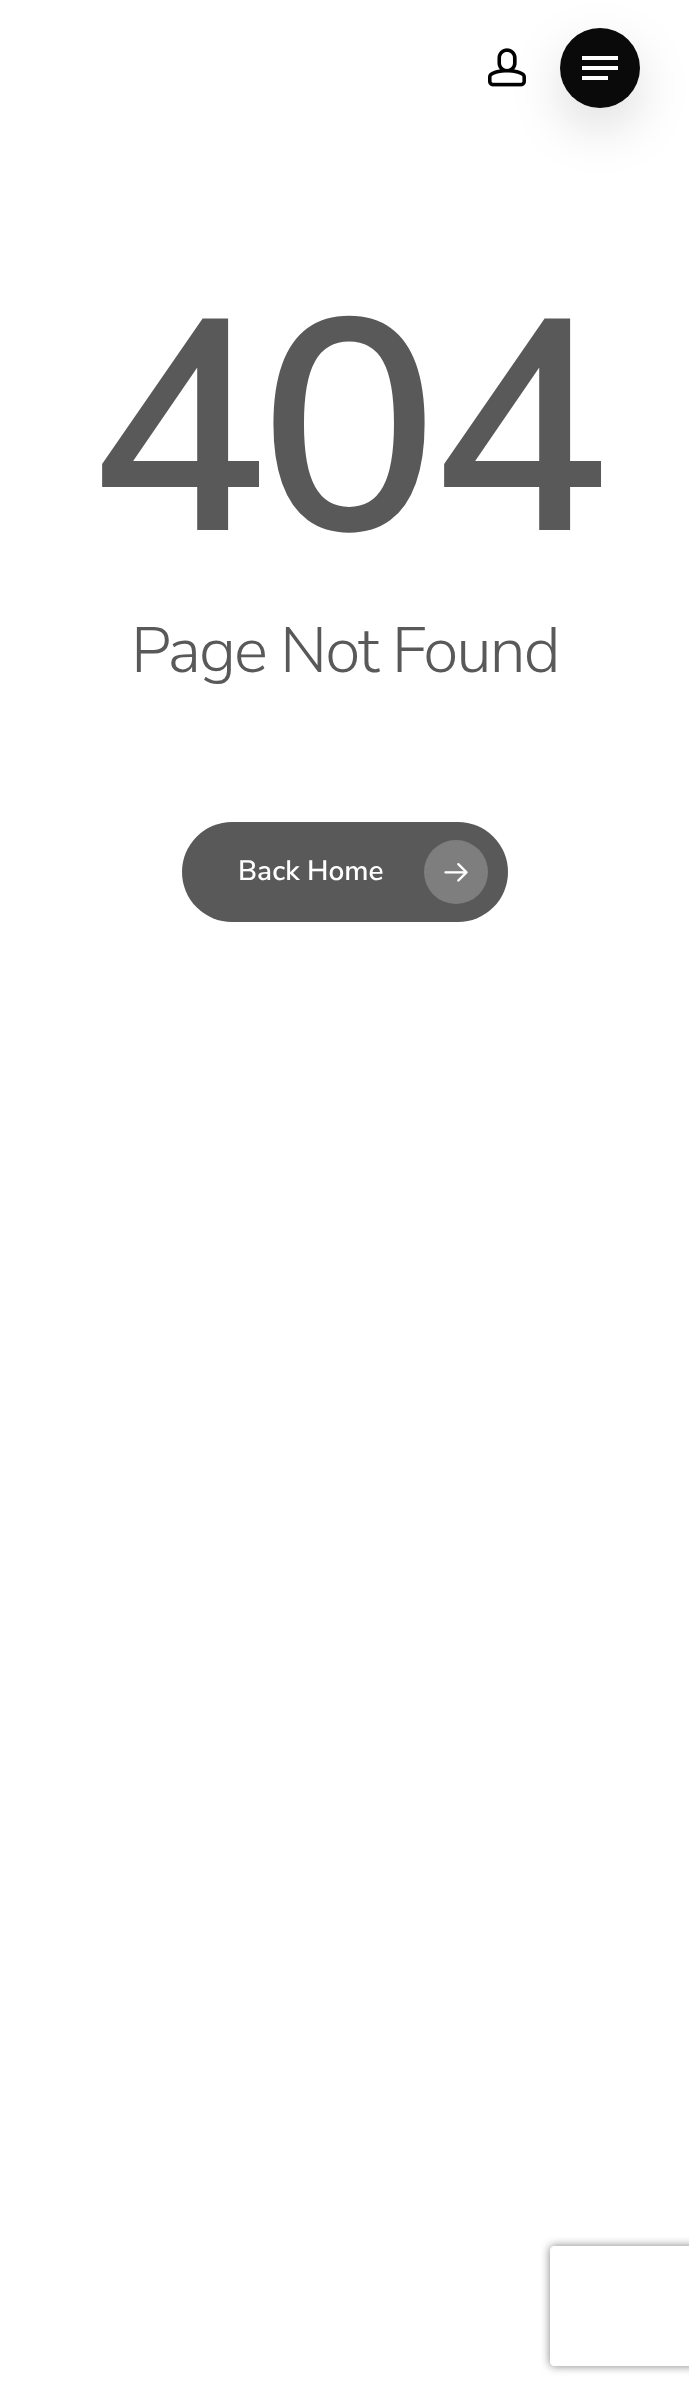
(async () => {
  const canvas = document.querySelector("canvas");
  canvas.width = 689;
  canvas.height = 2393;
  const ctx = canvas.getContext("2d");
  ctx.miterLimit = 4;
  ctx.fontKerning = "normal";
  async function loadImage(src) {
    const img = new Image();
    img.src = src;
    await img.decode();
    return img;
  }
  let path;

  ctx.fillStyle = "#ffffff";
  ctx.fillRect(0, 0, 689, 2393);
  ctx.drawImage(await loadImage("img/1.png"), 488, 48, 38, 39);
  ctx.fillStyle = "rgba(0, 0, 0, 0.13)";
  ctx.filter = "blur(25px)";
  ctx.beginPath();
  ctx.roundRect(560, 48, 80, 80, 40);
  ctx.fill();
  ctx.filter = "none";
  ctx.fillStyle = "#0a0a0a";
  ctx.beginPath();
  ctx.arc(600, 68, 40, 0, Math.PI * 2);
  ctx.fill();
  for (const [x, y, w, h, color] of [
    [582, 56, 36, 4, "#ffffff"],
    [582, 76, 26, 4, "#ffffff"],
    [582, 66, 36, 4, "#ffffff"],
  ]) {
    ctx.fillStyle = color;
    ctx.fillRect(x, y, w, h);
  }
  ctx.fillStyle = "#595959";
  ctx.beginPath();
  ctx.roundRect(182, 822, 326, 100, 50);
  ctx.fill();
  ctx.fillStyle = "#7e7e7e";
  ctx.beginPath();
  ctx.arc(456, 872, 32, 0, Math.PI * 2);
  ctx.fill();
  ctx.drawImage(await loadImage("img/2.png"), 444, 863, 24, 19);
  ctx.save();
  path = new Path2D("M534 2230H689V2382H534ZM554 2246H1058C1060 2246 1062 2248 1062 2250V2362C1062 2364 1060 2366 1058 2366H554C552 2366 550 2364 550 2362V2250C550 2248 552 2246 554 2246Z");
  ctx.clip(path, "evenodd");
  ctx.fillStyle = "#808080";
  ctx.filter = "blur(5px)";
  ctx.beginPath();
  ctx.roundRect(550, 2246, 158, 120, 4);
  ctx.fill();
  ctx.filter = "none";
  ctx.restore();
  ctx.letterSpacing = "-9px";
  ctx.font = "600 300px Nunito Sans";
  ctx.fillStyle = "#595959";
  ctx.fillText("404", 88, 530);
  ctx.letterSpacing = "-1.9px";
  ctx.font = "300 64px Nunito Sans";
  ctx.fillText("Page Not Found", 131, 672);
  ctx.letterSpacing = "0px";
  ctx.font = "600 28px Nunito Sans";
  ctx.fillStyle = "#ffffff";
  ctx.fillText("Back Home", 238, 880);
})();
